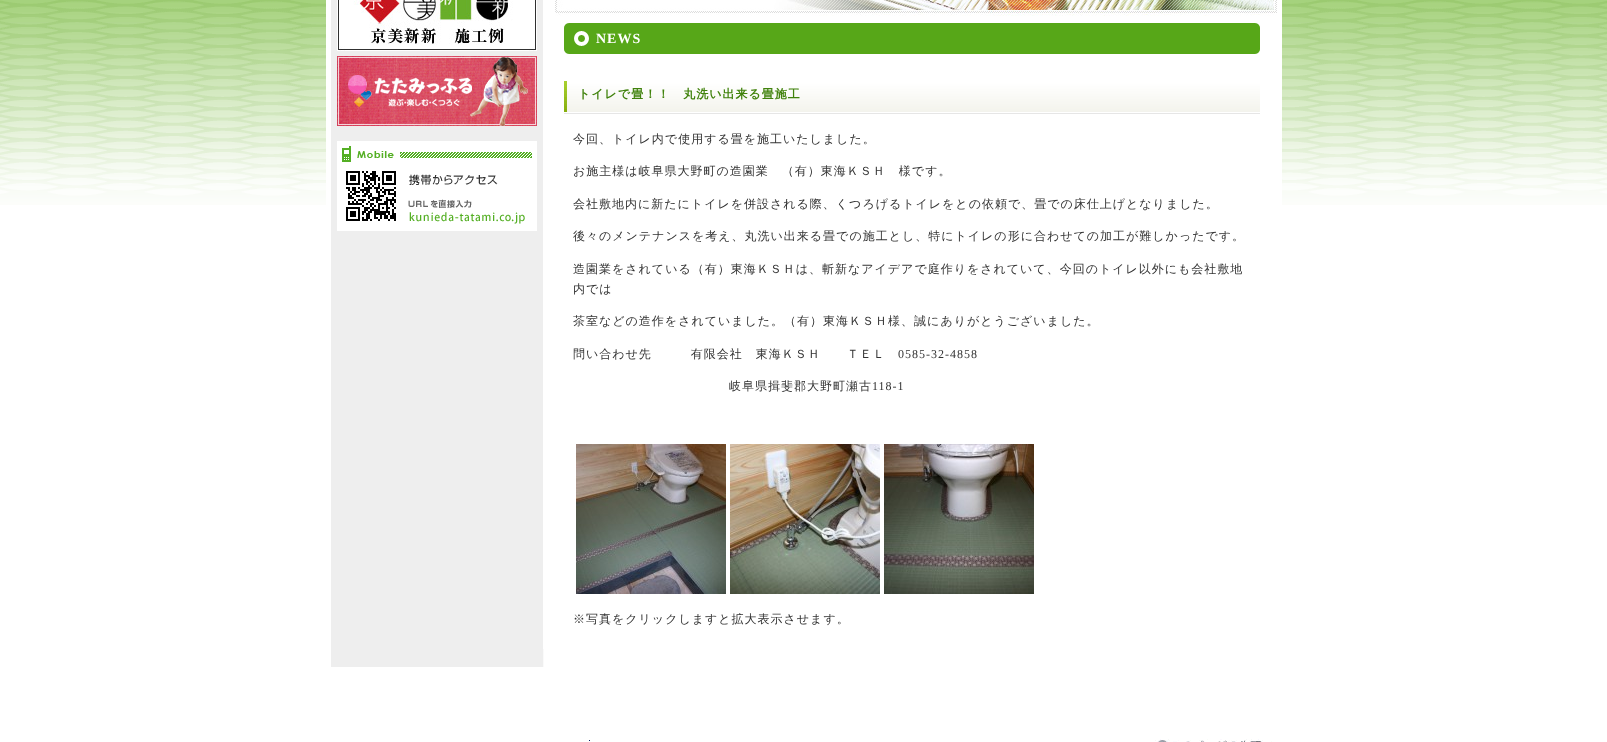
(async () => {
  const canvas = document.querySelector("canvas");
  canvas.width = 1607;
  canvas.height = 742;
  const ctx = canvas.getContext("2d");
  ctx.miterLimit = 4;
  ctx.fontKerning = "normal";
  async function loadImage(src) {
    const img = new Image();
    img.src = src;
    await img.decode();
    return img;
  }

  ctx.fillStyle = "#ffffff";
  ctx.fillRect(0, 0, 1607, 742);
  ctx.drawImage(await loadImage("img/1.png"), 0, 0, 1607, 205);
  ctx.fillRect(326, 0, 956, 205);
  ctx.fillStyle = "#eeeeee";
  ctx.fillRect(331, 231, 212, 436);
  ctx.drawImage(await loadImage("img/2.png"), 326, 0, 218, 231);
  ctx.drawImage(await loadImage("img/3.png"), 337, 0, 200, 51);
  ctx.drawImage(await loadImage("img/4.png"), 337, 56, 200, 70);
  ctx.drawImage(await loadImage("img/5.png"), 337, 141, 200, 90);
  ctx.drawImage(await loadImage("img/6.png"), 555, 0, 722, 16);
  ctx.drawImage(await loadImage("img/7.png"), 564, 23, 696, 31);
  ctx.drawImage(await loadImage("img/8.png"), 564, 81, 696, 33);
  ctx.drawImage(await loadImage("img/9.png"), 576, 444, 150, 150);
  ctx.drawImage(await loadImage("img/10.png"), 730, 444, 150, 150);
  ctx.drawImage(await loadImage("img/11.png"), 884, 444, 150, 150);
  ctx.fillStyle = "#fafafa";
  ctx.fillRect(543, 649, 1, 18);
  ctx.fillStyle = "#001f6a";
  ctx.fillRect(589, 740, 1, 1);
  ctx.drawImage(await loadImage("img/12.png"), 1155, 739, 117, 3);
  ctx.letterSpacing = "1px";
  ctx.font = "bold 14px Liberation Serif";
  ctx.fillStyle = "#ffffff";
  ctx.fillText("NEWS", 596, 43);
  ctx.font = "bold 12px WenQuanYi Zen Hei";
  ctx.fillStyle = "#40820c";
  ctx.fillText("トイレで畳！！　丸洗い出来る畳施工", 578, 98);
  ctx.font = "500 12px WenQuanYi Zen Hei";
  ctx.fillStyle = "#333333";
  for (const [text, x, y] of [
    ["今回、トイレ内で使用する畳を施工いたしました。", 573, 143],
    ["お施主様は岐阜県大野町の造園業　（有）東海ＫＳＨ　様です。", 573, 175],
    ["会社敷地内に新たにトイレを併設される際、くつろげるトイレをとの依頼で、畳での床仕上げとなりました。", 573, 208],
    ["後々のメンテナンスを考え、丸洗い出来る畳での施工とし、特にトイレの形に合わせての加工が難しかったです。", 573, 240],
    ["造園業をされている（有）東海ＫＳＨは、斬新なアイデアで庭作りをされていて、今回のトイレ以外にも会社敷地", 573, 273],
    ["内では", 573, 293],
    ["茶室などの造作をされていました。（有）東海ＫＳＨ様、誠にありがとうございました。", 573, 325],
    ["問い合わせ先　　　有限会社　東海ＫＳＨ　　ＴＥＬ", 573, 358],
  ]) {
    ctx.fillText(text, x, y);
  }
  ctx.font = "12px Liberation Serif";
  ctx.fillText("0585-32-4858", 898, 358);
  ctx.font = "500 12px WenQuanYi Zen Hei";
  ctx.fillText("岐阜県揖斐郡大野町瀬古", 729, 390);
  ctx.font = "12px Liberation Serif";
  ctx.fillText("118-1", 872, 390);
  ctx.font = "500 12px WenQuanYi Zen Hei";
  ctx.fillText("※写真をクリックしますと拡大表示させます。", 573, 623);
})();
